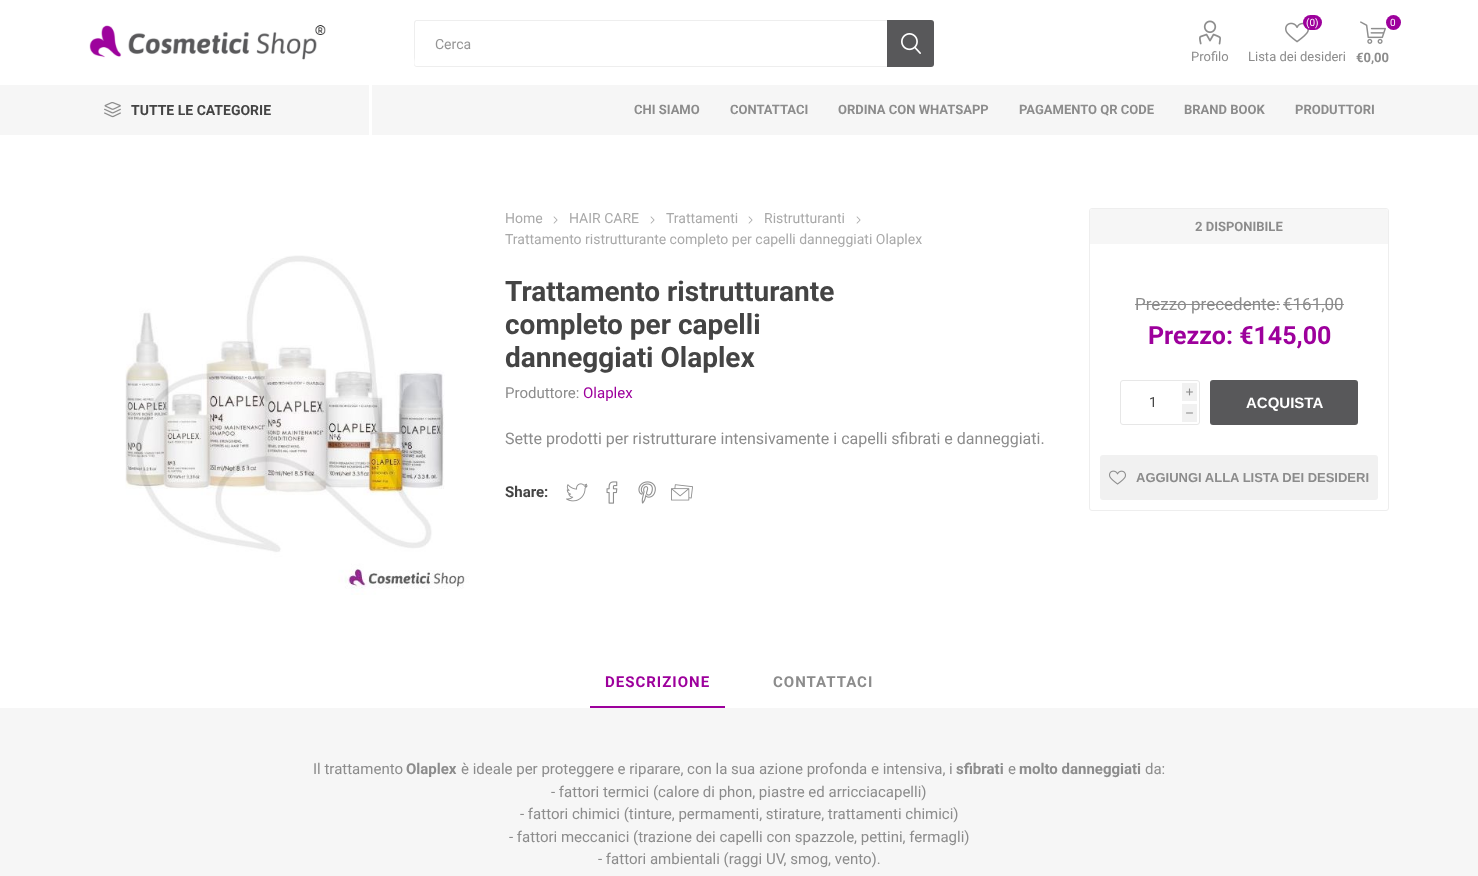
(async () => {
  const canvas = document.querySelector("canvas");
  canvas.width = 1478;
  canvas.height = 876;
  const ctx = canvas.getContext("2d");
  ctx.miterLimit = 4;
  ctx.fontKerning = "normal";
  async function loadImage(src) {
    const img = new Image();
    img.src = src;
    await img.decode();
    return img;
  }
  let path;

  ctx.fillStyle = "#ffffff";
  ctx.fillRect(0, 0, 1478, 876);
  ctx.drawImage(await loadImage("img/1.png"), 89, 25, 237, 35);
  ctx.fillStyle = "#eeeeee";
  path = new Path2D("M417 20H887V67H417C415 67 414 66 414 64V23C414 21 415 20 417 20ZM417 21H887V66H416C413 64 415 60 415 57V23L416 21Z");
  ctx.fill(path, "evenodd");
  ctx.fillStyle = "#58585a";
  ctx.beginPath();
  ctx.roundRect(887, 20, 47, 47, [0, 3, 3, 0]);
  ctx.fill();
  ctx.drawImage(await loadImage("img/2.png"), 901, 33, 20, 21);
  ctx.drawImage(await loadImage("img/3.png"), 1199, 20, 22, 25);
  ctx.drawImage(await loadImage("img/4.png"), 1285, 22, 24, 21);
  ctx.fillStyle = "#9d009c";
  ctx.beginPath();
  ctx.roundRect(1303, 15, 19, 15, 7.5);
  ctx.fill();
  ctx.drawImage(await loadImage("img/5.png"), 1360, 21, 26, 23);
  ctx.beginPath();
  ctx.arc(1393.5, 22.5, 7.5, 0, Math.PI * 2);
  ctx.fill();
  ctx.fillStyle = "#f6f6f6";
  ctx.fillRect(0, 85, 1478, 50);
  ctx.fillStyle = "#ffffff";
  ctx.fillRect(369, 85, 3, 50);
  ctx.drawImage(await loadImage("img/6.png"), 104, 102, 17, 16);
  ctx.drawImage(await loadImage("img/7.png"), 125, 255, 344, 340);
  ctx.drawImage(await loadImage("img/8.png"), 553, 216, 5, 8);
  ctx.drawImage(await loadImage("img/8.png"), 650, 216, 5, 8);
  ctx.drawImage(await loadImage("img/8.png"), 748, 216, 5, 8);
  ctx.drawImage(await loadImage("img/8.png"), 856, 216, 5, 8);
  ctx.beginPath();
  ctx.roundRect(1089.5, 208.5, 299, 302, 2.5);
  ctx.strokeStyle = "#eeeeee";
  ctx.stroke();
  ctx.fillStyle = "#f6f6f6";
  ctx.beginPath();
  ctx.roundRect(1090, 209, 298, 35, [3, 3, 0, 0]);
  ctx.fill();
  ctx.fillStyle = "#8c8c8c";
  ctx.fillRect(1135, 304, 145, 1);
  ctx.fillRect(1283, 304, 61, 1);
  ctx.beginPath();
  ctx.roundRect(1120.5, 380.5, 79, 44, 2.5);
  ctx.strokeStyle = "#e7e7e7";
  ctx.stroke();
  ctx.fillStyle = "#f1f1f1";
  ctx.fillRect(1182, 383, 15, 18);
  ctx.fillRect(1182, 404, 15, 18);
  ctx.fillStyle = "#58585a";
  ctx.beginPath();
  ctx.roundRect(1210, 380, 148, 45, 3);
  ctx.fill();
  ctx.fillStyle = "#f1f1f1";
  ctx.beginPath();
  ctx.roundRect(1100, 455, 278, 45, 3);
  ctx.fill();
  ctx.drawImage(await loadImage("img/9.png"), 1109, 470, 17, 15);
  ctx.drawImage(await loadImage("img/10.png"), 566, 483, 22, 19);
  ctx.drawImage(await loadImage("img/11.png"), 606, 481, 12, 23);
  ctx.drawImage(await loadImage("img/12.png"), 638, 481, 18, 23);
  ctx.drawImage(await loadImage("img/13.png"), 671, 484, 22, 17);
  ctx.fillStyle = "#9d009c";
  ctx.fillRect(590, 706, 135, 2);
  ctx.fillStyle = "#f6f6f6";
  ctx.fillRect(0, 708, 1478, 168);
  ctx.font = "14px Roboto";
  ctx.fillStyle = "#959595";
  ctx.fillText("Cerca", 435, 49);
  ctx.font = "13px Roboto";
  ctx.fillStyle = "#8c8c8c";
  ctx.fillText("Profilo", 1191, 61);
  ctx.font = "10px Roboto";
  ctx.fillStyle = "#ffffff";
  ctx.fillText("(0)", 1306, 26);
  ctx.font = "13px Roboto";
  ctx.fillStyle = "#8c8c8c";
  ctx.fillText("Lista dei desideri", 1248, 61);
  ctx.font = "10px Roboto";
  ctx.fillStyle = "#ffffff";
  ctx.fillText("0", 1390, 26);
  ctx.font = "bold 13px Roboto";
  ctx.fillStyle = "#8c8c8c";
  ctx.fillText("€0,00", 1356, 62);
  ctx.font = "bold 14px Roboto";
  ctx.fillStyle = "#444444";
  ctx.fillText("TUTTE LE CATEGORIE", 131, 115);
  ctx.font = "bold 13px Roboto";
  ctx.fillStyle = "#8c8c8c";
  for (const [text, x, y] of [
    ["CHI SIAMO", 634, 114],
    ["CONTATTACI", 730, 114],
    ["ORDINA CON WHATSAPP", 838, 114],
    ["PAGAMENTO QR CODE", 1019, 114],
    ["BRAND BOOK", 1184, 114],
    ["PRODUTTORI", 1295, 114],
  ]) {
    ctx.fillText(text, x, y);
  }
  ctx.font = "14px Roboto";
  ctx.fillStyle = "#a9a9a9";
  for (const [text, x, y] of [
    ["Home", 505, 223],
    ["HAIR CARE", 569, 223],
    ["Trattamenti", 666, 223],
    ["Ristrutturanti", 764, 223],
    ["Trattamento ristrutturante completo per capelli danneggiati Olaplex", 505, 244],
  ]) {
    ctx.fillText(text, x, y);
  }
  ctx.font = "bold 13px Roboto";
  ctx.fillStyle = "#8c8c8c";
  ctx.fillText("2 DISPONIBILE", 1195, 231);
  ctx.font = "17px Roboto";
  ctx.fillText("Prezzo precedente:", 1135, 310);
  ctx.fillText("€161,00", 1283, 310);
  ctx.font = "bold 25px Roboto";
  ctx.fillStyle = "#9d009c";
  ctx.fillText("Prezzo: €145,00", 1148, 344);
  ctx.font = "7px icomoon";
  ctx.fillStyle = "#8c8c8c";
  ctx.fillText("i", 1186, 395);
  ctx.font = "14px Roboto";
  ctx.fillStyle = "#444444";
  ctx.fillText("1", 1149, 407);
  ctx.font = "7px icomoon";
  ctx.fillStyle = "#8c8c8c";
  ctx.fillText("h", 1186, 416);
  ctx.font = "bold 15px Liberation Sans";
  ctx.fillStyle = "#ffffff";
  ctx.fillText("ACQUISTA", 1246, 408);
  ctx.font = "bold 13px Liberation Sans";
  ctx.fillStyle = "#8c8c8c";
  ctx.fillText("AGGIUNGI ALLA LISTA DEI DESIDERI", 1136, 482);
  ctx.font = "bold 28px Roboto";
  ctx.fillStyle = "#444444";
  for (const [text, x, y] of [
    ["Trattamento ristrutturante", 505, 301],
    ["completo per capelli", 505, 334],
    ["danneggiati Olaplex", 505, 367],
  ]) {
    ctx.fillText(text, x, y);
  }
  ctx.font = "15px Roboto";
  ctx.fillStyle = "#8c8c8c";
  ctx.fillText("Produttore:", 505, 398);
  ctx.fillStyle = "#9d009c";
  ctx.fillText("Olaplex", 583, 398);
  ctx.font = "16px Roboto";
  ctx.fillStyle = "#8c8c8c";
  ctx.fillText("Sette prodotti per ristrutturare intensivamente i capelli sfibrati e danneggiati.", 505, 444);
  ctx.font = "bold 15px Roboto";
  ctx.fillStyle = "#444444";
  ctx.fillText("Share:", 505, 497);
  ctx.letterSpacing = "1px";
  ctx.fillStyle = "#9d009c";
  ctx.fillText("DESCRIZIONE", 605, 687);
  ctx.fillStyle = "#8c8c8c";
  ctx.fillText("CONTATTACI", 773, 687);
  ctx.letterSpacing = "0px";
  ctx.font = "15px Roboto";
  ctx.fillText("Il trattamento", 313, 774);
  ctx.font = "bold 15px Roboto";
  ctx.fillText("Olaplex", 406, 774);
  ctx.font = "15px Roboto";
  ctx.fillText("è ideale per proteggere e riparare, con la sua azione profonda e intensiva, i", 461, 774);
  ctx.font = "bold 15px Roboto";
  ctx.fillText("sfibrati", 956, 774);
  ctx.font = "15px Roboto";
  ctx.fillText("e", 1008, 774);
  ctx.font = "bold 15px Roboto";
  ctx.fillText("molto danneggiati", 1019, 774);
  ctx.font = "15px Roboto";
  for (const [text, x, y] of [
    ["da:", 1145, 774],
    ["- fattori termici (calore di phon, piastre ed arricciacapelli)", 551, 797],
    ["- fattori chimici (tinture, permamenti, stirature, trattamenti chimici)", 520, 819],
    ["- fattori meccanici (trazione dei capelli con spazzole, pettini, fermagli)", 509, 842],
    ["- fattori ambientali (raggi UV, smog, vento).", 598, 864],
  ]) {
    ctx.fillText(text, x, y);
  }
})();
